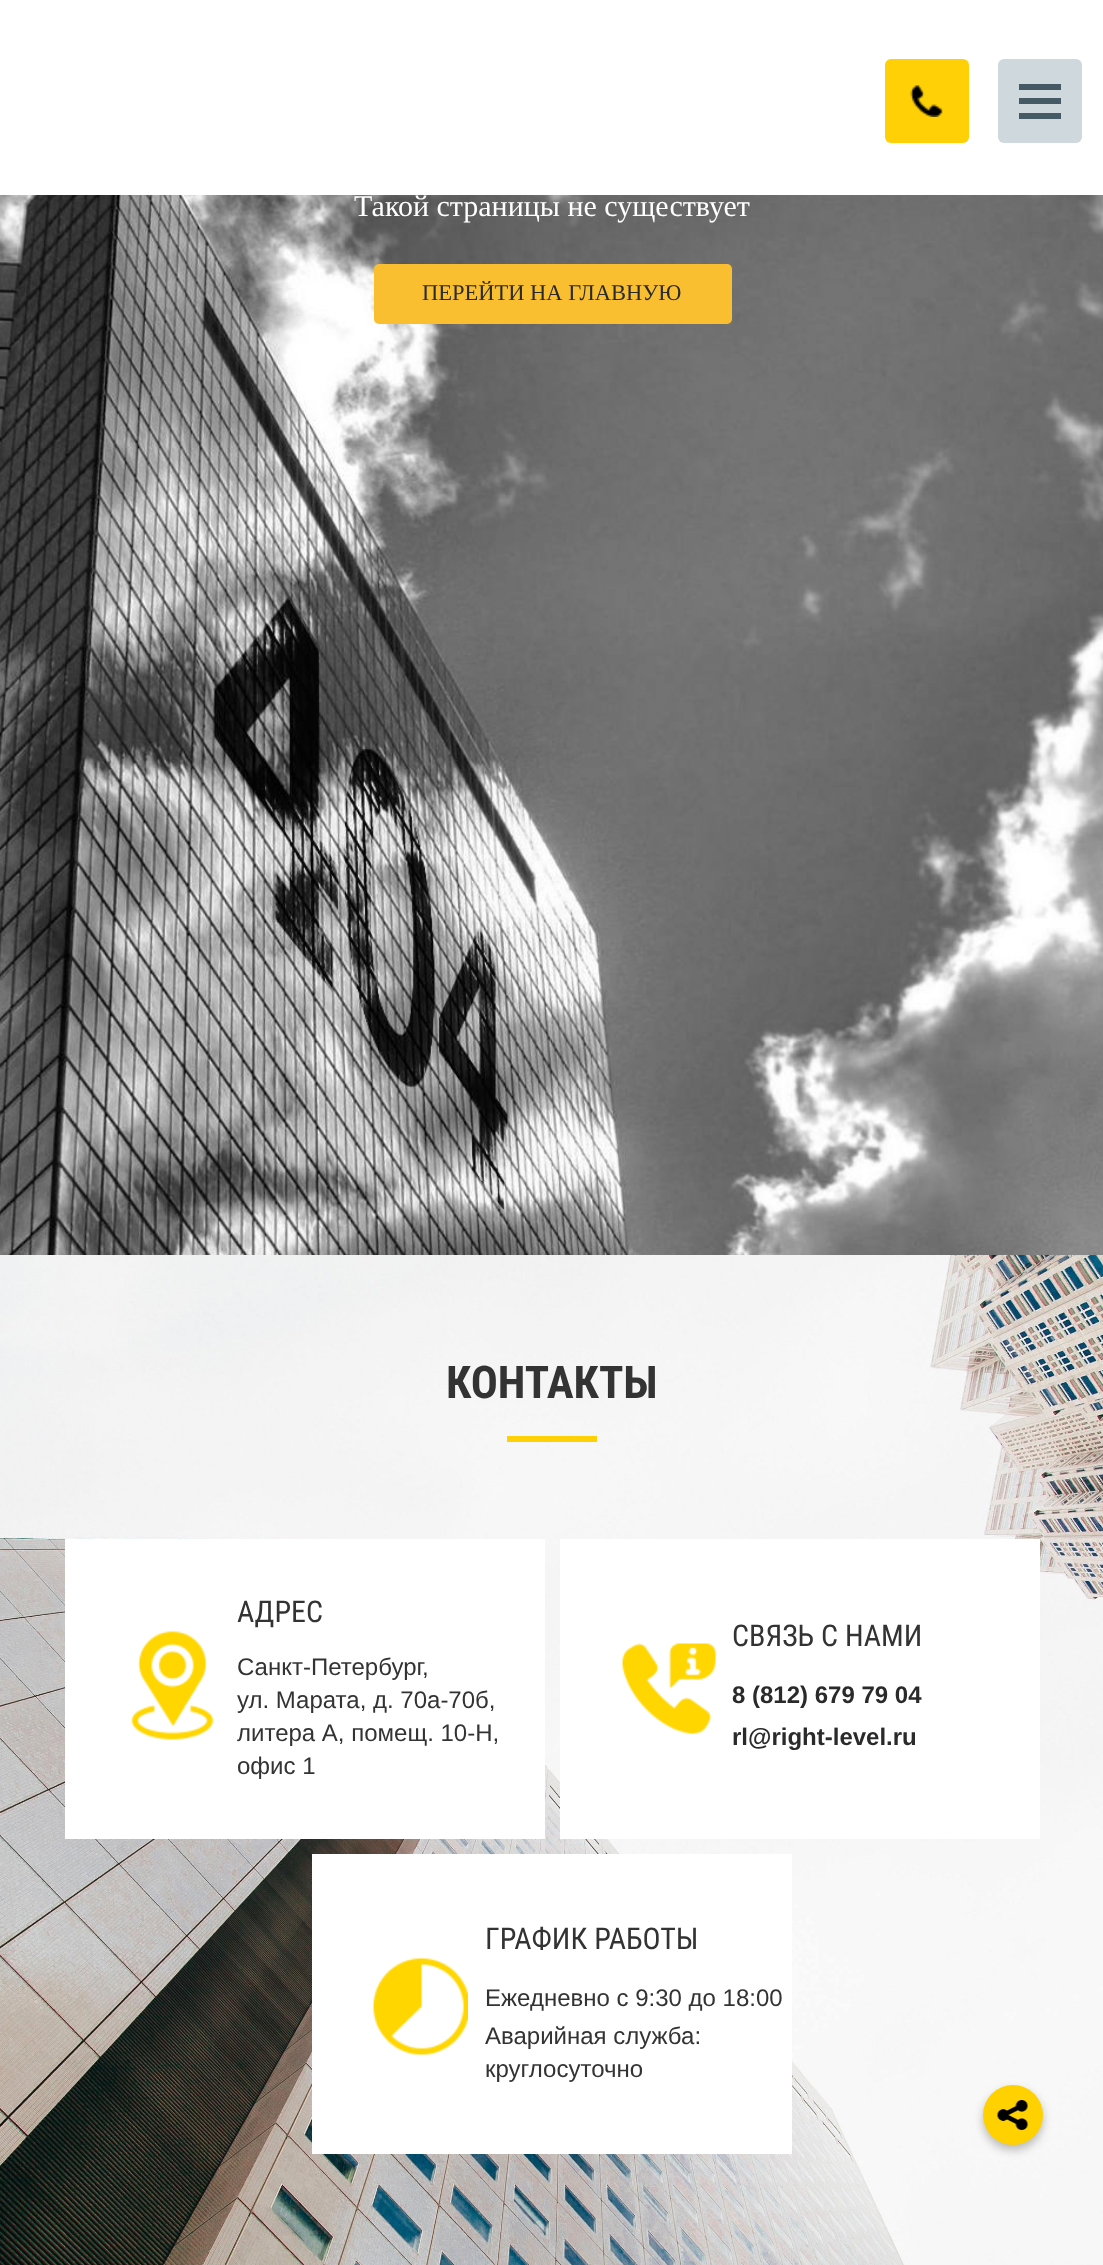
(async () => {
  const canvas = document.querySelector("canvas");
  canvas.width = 1103;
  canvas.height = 2265;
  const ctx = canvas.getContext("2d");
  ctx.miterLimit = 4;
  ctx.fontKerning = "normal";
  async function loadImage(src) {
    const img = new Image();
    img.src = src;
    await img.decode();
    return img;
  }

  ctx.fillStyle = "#ffffff";
  ctx.fillRect(0, 0, 1103, 2265);
  ctx.fillStyle = "#ffd005";
  ctx.beginPath();
  ctx.roundRect(885, 59, 84, 84, 6);
  ctx.fill();
  ctx.drawImage(await loadImage("img/1.png"), 910, 85, 33, 32);
  ctx.fillStyle = "#cfd8dc";
  ctx.beginPath();
  ctx.roundRect(998, 59, 84, 84, 6);
  ctx.fill();
  for (const [x, y, w, h, color] of [
    [1019, 98, 42, 6, "#455a64"],
    [1019, 84, 42, 6, "#455a64"],
    [1019, 113, 42, 6, "#455a64"],
  ]) {
    ctx.fillStyle = color;
    ctx.fillRect(x, y, w, h);
  }
  ctx.drawImage(await loadImage("img/2.png"), 0, 195, 1103, 1060);
  ctx.fillStyle = "#fabf30";
  ctx.beginPath();
  ctx.roundRect(374, 264, 358, 60, 5);
  ctx.fill();
  ctx.drawImage(await loadImage("img/3.png"), 0, 1255, 1103, 1010);
  ctx.fillStyle = "#ffd005";
  ctx.fillRect(507, 1436, 90, 6);
  ctx.fillStyle = "#ffffff";
  ctx.fillRect(65, 1539, 480, 300);
  ctx.drawImage(await loadImage("img/4.png"), 131, 1631, 83, 109);
  ctx.fillRect(560, 1539, 480, 300);
  ctx.drawImage(await loadImage("img/5.png"), 622, 1642, 94, 92);
  ctx.fillRect(312, 1854, 480, 300);
  ctx.drawImage(await loadImage("img/6.png"), 373, 1958, 95, 97);
  ctx.fillStyle = "rgba(0, 0, 0, 0.25)";
  ctx.filter = "blur(5px)";
  ctx.beginPath();
  ctx.roundRect(983, 2090, 60, 60, 30);
  ctx.fill();
  ctx.filter = "none";
  ctx.fillStyle = "#ffd100";
  ctx.beginPath();
  ctx.arc(1013, 2115, 30, 0, Math.PI * 2);
  ctx.fill();
  ctx.drawImage(await loadImage("img/7.png"), 997, 2100, 31, 30);
  ctx.font = "30px Liberation Serif";
  ctx.fillStyle = "#ffffff";
  ctx.fillText("Такой страницы не существует", 354, 216);
  ctx.font = "22.5px Liberation Serif";
  ctx.fillStyle = "#2a2a2a";
  ctx.fillText("ПЕРЕЙТИ НА ГЛАВНУЮ", 422, 300);
  ctx.font = "bold 45px Roboto Condensed";
  ctx.fillStyle = "#333333";
  ctx.fillText("КОНТАКТЫ", 446, 1398);
  ctx.font = "30px Roboto Condensed";
  ctx.fillText("АДРЕС", 237, 1622);
  ctx.font = "24px Liberation Sans";
  for (const [text, x, y] of [
    ["Санкт-Петербург", 237, 1675],
    [",", 422, 1675],
    ["ул. Марата, д. 70а-70б,", 237, 1708],
    ["литера А, помещ. 10-Н,", 237, 1741],
    ["офис 1", 237, 1774],
  ]) {
    ctx.fillText(text, x, y);
  }
  ctx.font = "30px Roboto Condensed";
  ctx.fillText("СВЯЗЬ С НАМИ", 732, 1646);
  ctx.font = "bold 24px Liberation Sans";
  ctx.fillStyle = "#2a2a2a";
  ctx.fillText("8 (812) 679 79 04", 732, 1703);
  ctx.fillText("rl@right-level.ru", 732, 1745);
  ctx.font = "30px Roboto Condensed";
  ctx.fillStyle = "#333333";
  ctx.fillText("ГРАФИК РАБОТЫ", 485, 1949);
  ctx.font = "24px Liberation Sans";
  for (const [text, x, y] of [
    ["Ежедневно с 9:30 до 18:00", 485, 2006],
    ["Аварийная служба:", 485, 2044],
    ["круглосуточно", 485, 2077],
  ]) {
    ctx.fillText(text, x, y);
  }
})();
